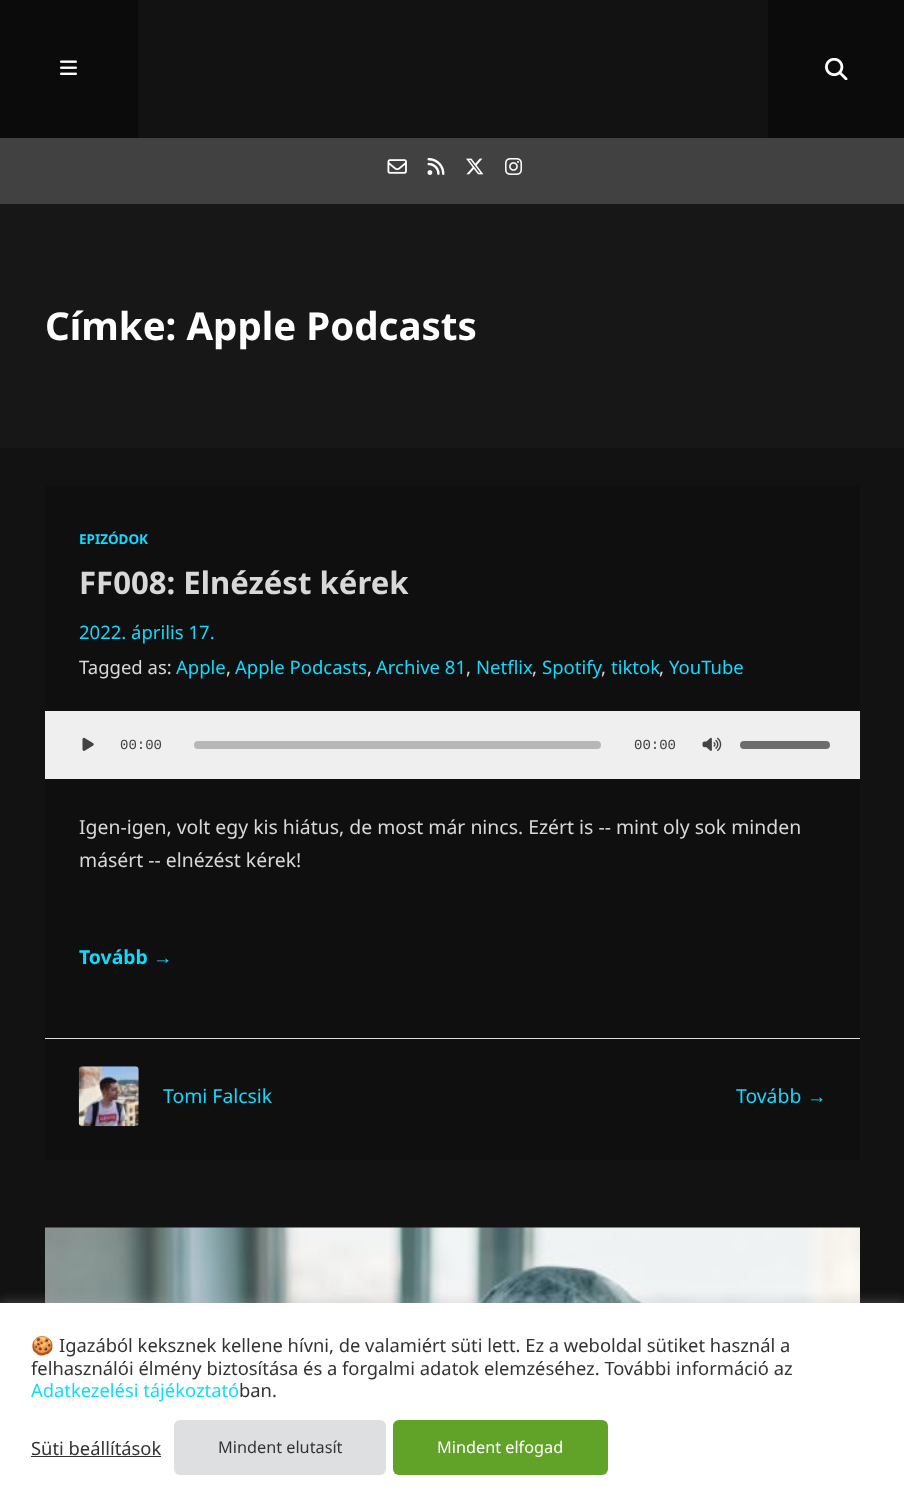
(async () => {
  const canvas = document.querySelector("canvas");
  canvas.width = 904;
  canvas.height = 1512;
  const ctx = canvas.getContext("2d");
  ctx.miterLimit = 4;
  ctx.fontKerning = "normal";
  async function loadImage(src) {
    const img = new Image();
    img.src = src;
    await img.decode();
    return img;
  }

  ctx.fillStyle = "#121212";
  ctx.fillRect(0, 0, 904, 1512);
  ctx.fillStyle = "#0b0b0b";
  ctx.fillRect(0, 0, 138, 138);
  ctx.drawImage(await loadImage("img/1.png"), 60, 60, 17, 15);
  ctx.fillRect(768, 0, 136, 138);
  ctx.drawImage(await loadImage("img/2.png"), 825, 58, 23, 22);
  ctx.fillStyle = "#414141";
  ctx.fillRect(0, 138, 904, 66);
  ctx.drawImage(await loadImage("img/3.png"), 387, 159, 20, 15);
  ctx.drawImage(await loadImage("img/4.png"), 427, 158, 18, 17);
  ctx.drawImage(await loadImage("img/5.png"), 466, 158, 18, 17);
  ctx.drawImage(await loadImage("img/6.png"), 505, 158, 17, 17);
  for (const [x, y, w, h, color] of [
    [0, 204, 904, 244, "#171717"],
    [45, 486, 815, 674, "#0f0f0f"],
    [45, 711, 815, 68, "#efefef"],
  ]) {
    ctx.fillStyle = color;
    ctx.fillRect(x, y, w, h);
  }
  ctx.drawImage(await loadImage("img/7.png"), 82, 737, 12, 14);
  ctx.fillStyle = "#b7b7b7";
  ctx.beginPath();
  ctx.roundRect(194, 741, 407, 8, 4);
  ctx.fill();
  ctx.drawImage(await loadImage("img/8.png"), 702, 737, 20, 14);
  ctx.fillStyle = "#6d6d6d";
  ctx.beginPath();
  ctx.roundRect(740, 741, 90, 8, 4);
  ctx.fill();
  ctx.fillStyle = "#dddddd";
  ctx.fillRect(45, 1038, 815, 1);
  ctx.drawImage(await loadImage("img/9.png"), 78, 1066, 61, 61);
  ctx.drawImage(await loadImage("img/10.png"), 45, 1227, 815, 76);
  ctx.fillStyle = "rgba(172, 171, 171, 0.3)";
  ctx.filter = "blur(6px)";
  ctx.beginPath();
  ctx.rect(0, 1301, 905, 210);
  ctx.fill();
  ctx.filter = "none";
  ctx.fillStyle = "#ffffff";
  ctx.fillRect(0, 1303, 904, 209);
  ctx.fillStyle = "#333333";
  ctx.fillRect(31, 1456, 130, 1);
  ctx.fillStyle = "#dedfe0";
  ctx.beginPath();
  ctx.roundRect(174, 1420, 212, 55, 6);
  ctx.fill();
  ctx.fillStyle = "#61a229";
  ctx.beginPath();
  ctx.roundRect(393, 1420, 215, 55, 6);
  ctx.fill();
  ctx.font = "bold 38.5px Noto Sans";
  ctx.fillStyle = "#ffffff";
  ctx.fillText("Címke: Apple Podcasts", 45, 340);
  ctx.font = "bold 13.5px Noto Sans";
  ctx.fillStyle = "#0fdbff";
  ctx.fillText("EPIZÓDOK", 79, 544);
  ctx.font = "bold 31.1px Noto Sans";
  ctx.fillStyle = "#d8d8d8";
  ctx.fillText("FF008: Elnézést kérek", 79, 594);
  ctx.font = "18.5px Noto Sans";
  ctx.fillStyle = "#0fdbff";
  ctx.fillText("2022. április 17.", 79, 639);
  ctx.fillStyle = "#d8d8d8";
  ctx.fillText("Tagged as:", 79, 674);
  ctx.fillStyle = "#0fdbff";
  ctx.fillText("Apple", 176, 674);
  ctx.fillStyle = "#d8d8d8";
  ctx.fillText(",", 226, 674);
  ctx.fillStyle = "#0fdbff";
  ctx.fillText("Apple Podcasts", 235, 674);
  ctx.fillStyle = "#d8d8d8";
  ctx.fillText(",", 367, 674);
  ctx.fillStyle = "#0fdbff";
  ctx.fillText("Archive 81", 376, 674);
  ctx.fillStyle = "#d8d8d8";
  ctx.fillText(",", 466, 674);
  ctx.fillStyle = "#0fdbff";
  ctx.fillText("Netflix", 476, 674);
  ctx.fillStyle = "#d8d8d8";
  ctx.fillText(",", 532, 674);
  ctx.fillStyle = "#0fdbff";
  ctx.fillText("Spotify", 542, 674);
  ctx.fillStyle = "#d8d8d8";
  ctx.fillText(",", 601, 674);
  ctx.fillStyle = "#0fdbff";
  ctx.fillText("tiktok", 611, 674);
  ctx.fillStyle = "#d8d8d8";
  ctx.fillText(",", 659, 674);
  ctx.fillStyle = "#0fdbff";
  ctx.fillText("YouTube", 669, 674);
  ctx.font = "14px Liberation Mono";
  ctx.fillStyle = "#3f3f3f";
  ctx.fillText("00:00", 120, 749);
  ctx.fillText("00:00", 634, 749);
  ctx.font = "19.4px Noto Sans";
  ctx.fillStyle = "#d8d8d8";
  ctx.fillText("Igen-igen, volt egy kis hiátus, de most már nincs. Ezért is -- mint oly sok minden", 79, 834);
  ctx.fillText("másért -- elnézést kérek!", 79, 867);
  ctx.font = "bold 19.4px Noto Sans";
  ctx.fillStyle = "#0fdbff";
  ctx.fillText("Tovább", 79, 964);
  ctx.font = "bold 19.4px Liberation Serif";
  ctx.fillText("→", 153, 964);
  ctx.font = "19.4px Noto Sans";
  ctx.fillText("Tomi Falcsik", 163, 1103);
  ctx.fillText("Tovább", 736, 1103);
  ctx.font = "19.4px Liberation Serif";
  ctx.fillText("→", 807, 1103);
  ctx.font = "18.35px Noto Color Emoji";
  ctx.fillStyle = "#333333";
  ctx.fillText("🍪", 31, 1352);
  ctx.font = "18.35px Noto Sans";
  ctx.fillText("Igazából keksznek kellene hívni, de valamiért süti lett. Ez a weboldal sütiket használ a", 59, 1352);
  ctx.fillText("felhasználói élmény biztosítása és a forgalmi adatok elemzéséhez. További információ az", 31, 1375);
  ctx.fillStyle = "#0fdbff";
  ctx.fillText("Adatkezelési tájékoztató", 31, 1397);
  ctx.fillStyle = "#333333";
  ctx.fillText("ban.", 239, 1397);
  ctx.fillText("Süti beállítások", 31, 1455);
  ctx.font = "16.25px Noto Sans";
  ctx.fillText("Mindent elutasít", 218, 1453);
  ctx.fillStyle = "#ffffff";
  ctx.fillText("Mindent elfogad", 437, 1453);
})();
